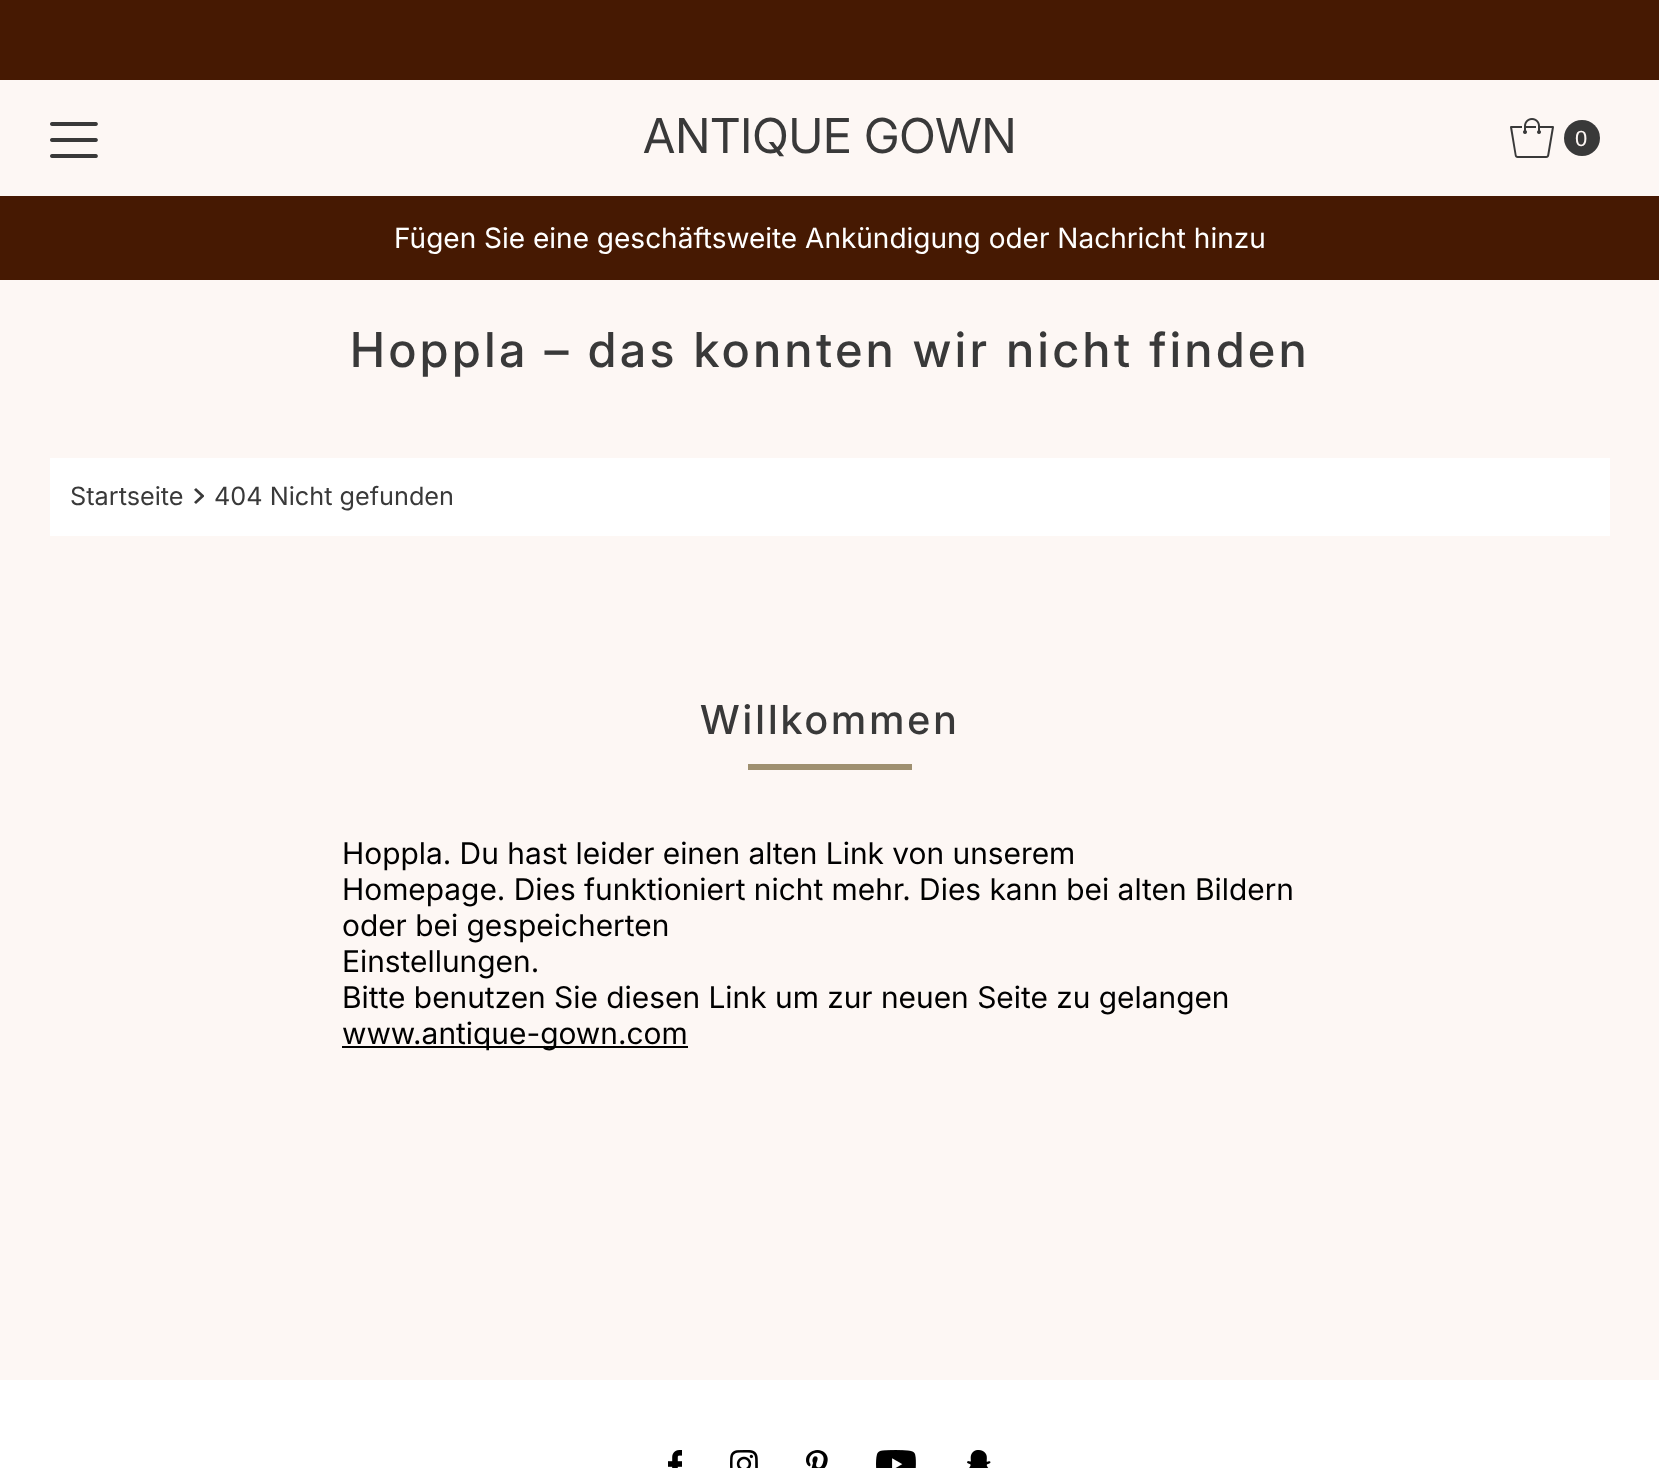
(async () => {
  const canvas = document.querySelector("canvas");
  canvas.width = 1659;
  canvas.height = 1468;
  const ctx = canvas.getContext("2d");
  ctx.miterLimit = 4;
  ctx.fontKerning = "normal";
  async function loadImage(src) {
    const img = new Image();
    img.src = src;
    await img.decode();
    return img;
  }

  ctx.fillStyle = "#fdf7f4";
  ctx.fillRect(0, 0, 1659, 1468);
  ctx.fillStyle = "#461902";
  ctx.fillRect(0, 0, 1659, 80);
  ctx.drawImage(await loadImage("img/1.png"), 50, 122, 48, 36);
  ctx.drawImage(await loadImage("img/2.png"), 1510, 118, 44, 40);
  ctx.fillStyle = "#393939";
  ctx.beginPath();
  ctx.arc(1582, 138, 18, 0, Math.PI * 2);
  ctx.fill();
  ctx.fillStyle = "#461902";
  ctx.fillRect(0, 196, 1659, 84);
  ctx.fillStyle = "#ffffff";
  ctx.fillRect(50, 458, 1560, 78);
  ctx.drawImage(await loadImage("img/3.png"), 194, 488, 10, 16);
  for (const [x, y, w, h, color] of [
    [748, 764, 164, 6, "#9f9070"],
    [342, 1046, 346, 2, "#000000"],
    [0, 1380, 1659, 88, "#ffffff"],
  ]) {
    ctx.fillStyle = color;
    ctx.fillRect(x, y, w, h);
  }
  ctx.drawImage(await loadImage("img/4.png"), 668, 1450, 14, 18);
  ctx.drawImage(await loadImage("img/5.png"), 730, 1450, 28, 18);
  ctx.drawImage(await loadImage("img/6.png"), 806, 1450, 22, 18);
  ctx.drawImage(await loadImage("img/7.png"), 876, 1450, 40, 18);
  ctx.drawImage(await loadImage("img/8.png"), 967, 1450, 24, 18);
  ctx.font = "48px 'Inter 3'";
  ctx.fillStyle = "#393939";
  ctx.fillText("ANTIQUE GOWN", 643, 153);
  ctx.font = "22px Liberation Sans";
  ctx.fillStyle = "#fdf7f4";
  ctx.fillText("0", 1575, 146);
  ctx.font = "28px Inter";
  ctx.fillStyle = "#ffffff";
  ctx.fillText("Fügen Sie eine geschäftsweite Ankündigung oder Nachricht hinzu", 394, 248);
  ctx.letterSpacing = "3.6px";
  ctx.font = "500 48px Inter";
  ctx.fillStyle = "#393939";
  ctx.fillText("Hoppla – das konnten wir nicht finden", 350, 367);
  ctx.letterSpacing = "0px";
  ctx.font = "25.25px Inter";
  ctx.fillText("Startseite", 70, 505);
  ctx.fillText("404 Nicht gefunden", 214, 505);
  ctx.letterSpacing = "3px";
  ctx.font = "500 40px 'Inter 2'";
  ctx.fillText("Willkommen", 700, 734);
  ctx.letterSpacing = "0px";
  ctx.font = "30px 'Inter 2'";
  ctx.fillStyle = "#000000";
  for (const [text, x, y] of [
    ["Hoppla. Du hast leider einen alten Link von unserem", 342, 864],
    ["Homepage. Dies funktioniert nicht mehr. Dies kann bei alten Bildern", 342, 900],
    ["oder bei gespeicherten", 342, 936],
    ["Einstellungen.", 342, 972],
    ["Bitte benutzen Sie diesen Link um zur neuen Seite zu gelangen", 342, 1008],
    ["www.antique-gown.com", 342, 1044],
  ]) {
    ctx.fillText(text, x, y);
  }
})();
